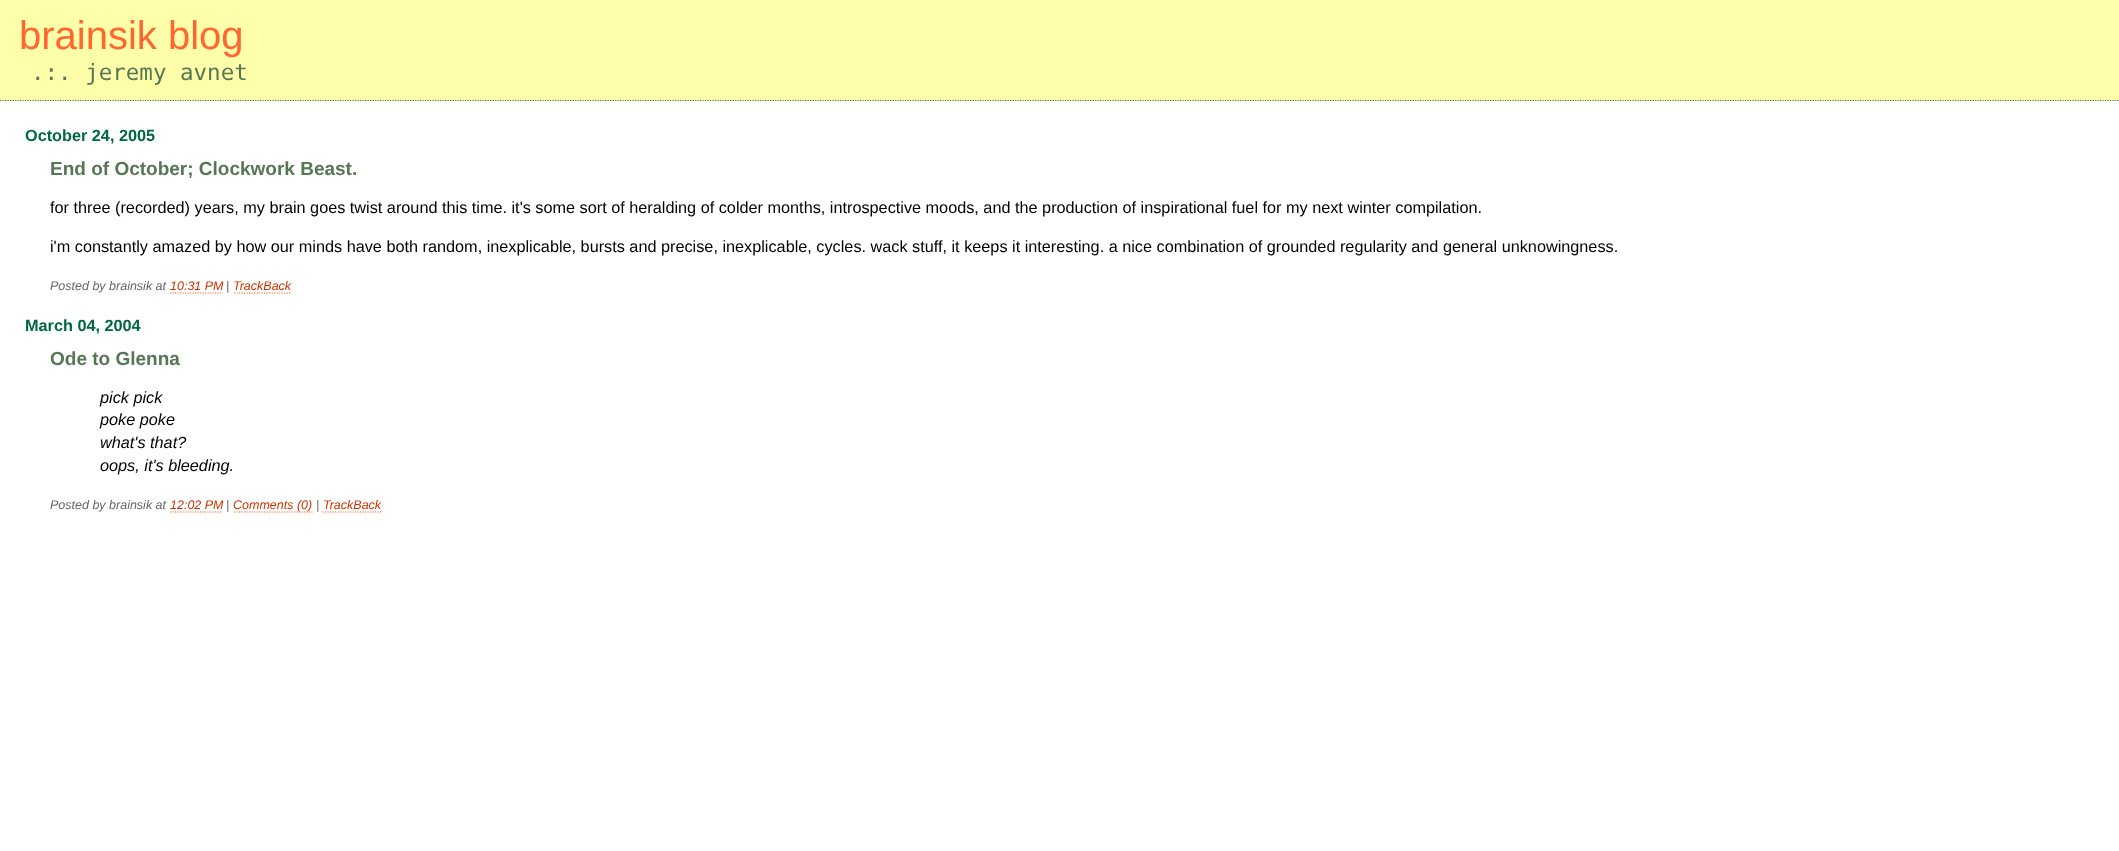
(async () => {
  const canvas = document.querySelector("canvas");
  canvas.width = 2119;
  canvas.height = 851;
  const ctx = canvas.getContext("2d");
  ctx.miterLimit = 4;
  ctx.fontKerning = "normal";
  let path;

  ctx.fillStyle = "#ffffff";
  ctx.fillRect(0, 0, 2119, 851);
  ctx.fillStyle = "#ffffaa";
  ctx.fillRect(0, 0, 2119, 101);
  path = new Path2D("M0 100.5H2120");
  ctx.strokeStyle = "#557755";
  ctx.lineWidth = 1.2;
  ctx.setLineDash([1.25, 1.25]);
  ctx.stroke(path);
  path = new Path2D("M170 293H222.5");
  ctx.strokeStyle = "#ff6633";
  ctx.stroke(path);
  path = new Path2D("M234 293H291");
  ctx.stroke(path);
  path = new Path2D("M170 512H222.5");
  ctx.stroke(path);
  path = new Path2D("M234 512H312.5");
  ctx.stroke(path);
  path = new Path2D("M322.5 512H381");
  ctx.stroke(path);
  ctx.font = "40px Liberation Sans";
  ctx.fillStyle = "#ff6633";
  ctx.fillText("brainsik blog", 19, 49);
  ctx.font = "22.5px DejaVu Sans Mono";
  ctx.fillStyle = "#557755";
  ctx.fillText(".:. jeremy avnet", 31, 80);
  ctx.font = "bold 16.25px Liberation Sans";
  ctx.fillStyle = "#006644";
  ctx.fillText("October 24, 2005", 25, 141);
  ctx.font = "bold 19px Liberation Sans";
  ctx.fillStyle = "#557755";
  ctx.fillText("End of October; Clockwork Beast.", 50, 175);
  ctx.font = "16.25px Liberation Sans";
  ctx.fillStyle = "#000000";
  ctx.fillText("for three (recorded) years, my brain goes twist around this time. it's some sort of heralding of colder months, introspective moods, and the production of inspirational fuel for my next winter compilation.", 50, 213);
  ctx.fillText("i'm constantly amazed by how our minds have both random, inexplicable, bursts and precise, inexplicable, cycles. wack stuff, it keeps it interesting. a nice combination of grounded regularity and general unknowingness.", 50, 252);
  ctx.font = "italic 12.5px Liberation Sans";
  ctx.fillStyle = "#666666";
  ctx.fillText("Posted by brainsik at", 50, 290);
  ctx.fillStyle = "#cc3300";
  ctx.fillText("10:31 PM", 170, 290);
  ctx.fillStyle = "#666666";
  ctx.fillText("|", 226, 290);
  ctx.fillStyle = "#cc3300";
  ctx.fillText("TrackBack", 233, 290);
  ctx.font = "bold 16.25px Liberation Sans";
  ctx.fillStyle = "#006644";
  ctx.fillText("March 04, 2004", 25, 331);
  ctx.font = "bold 19px Liberation Sans";
  ctx.fillStyle = "#557755";
  ctx.fillText("Ode to Glenna", 50, 365);
  ctx.font = "italic 16.25px Liberation Sans";
  ctx.fillStyle = "#000000";
  for (const [text, x, y] of [
    ["pick pick", 100, 403],
    ["poke poke", 100, 425],
    ["what's that?", 100, 448],
    ["oops, it's bleeding.", 100, 471],
  ]) {
    ctx.fillText(text, x, y);
  }
  ctx.font = "italic 12.5px Liberation Sans";
  ctx.fillStyle = "#666666";
  ctx.fillText("Posted by brainsik at", 50, 509);
  ctx.fillStyle = "#cc3300";
  ctx.fillText("12:02 PM", 170, 509);
  ctx.fillStyle = "#666666";
  ctx.fillText("|", 226, 509);
  ctx.fillStyle = "#cc3300";
  ctx.fillText("Comments (0)", 233, 509);
  ctx.fillStyle = "#666666";
  ctx.fillText("|", 316, 509);
  ctx.fillStyle = "#cc3300";
  ctx.fillText("TrackBack", 323, 509);
})();
